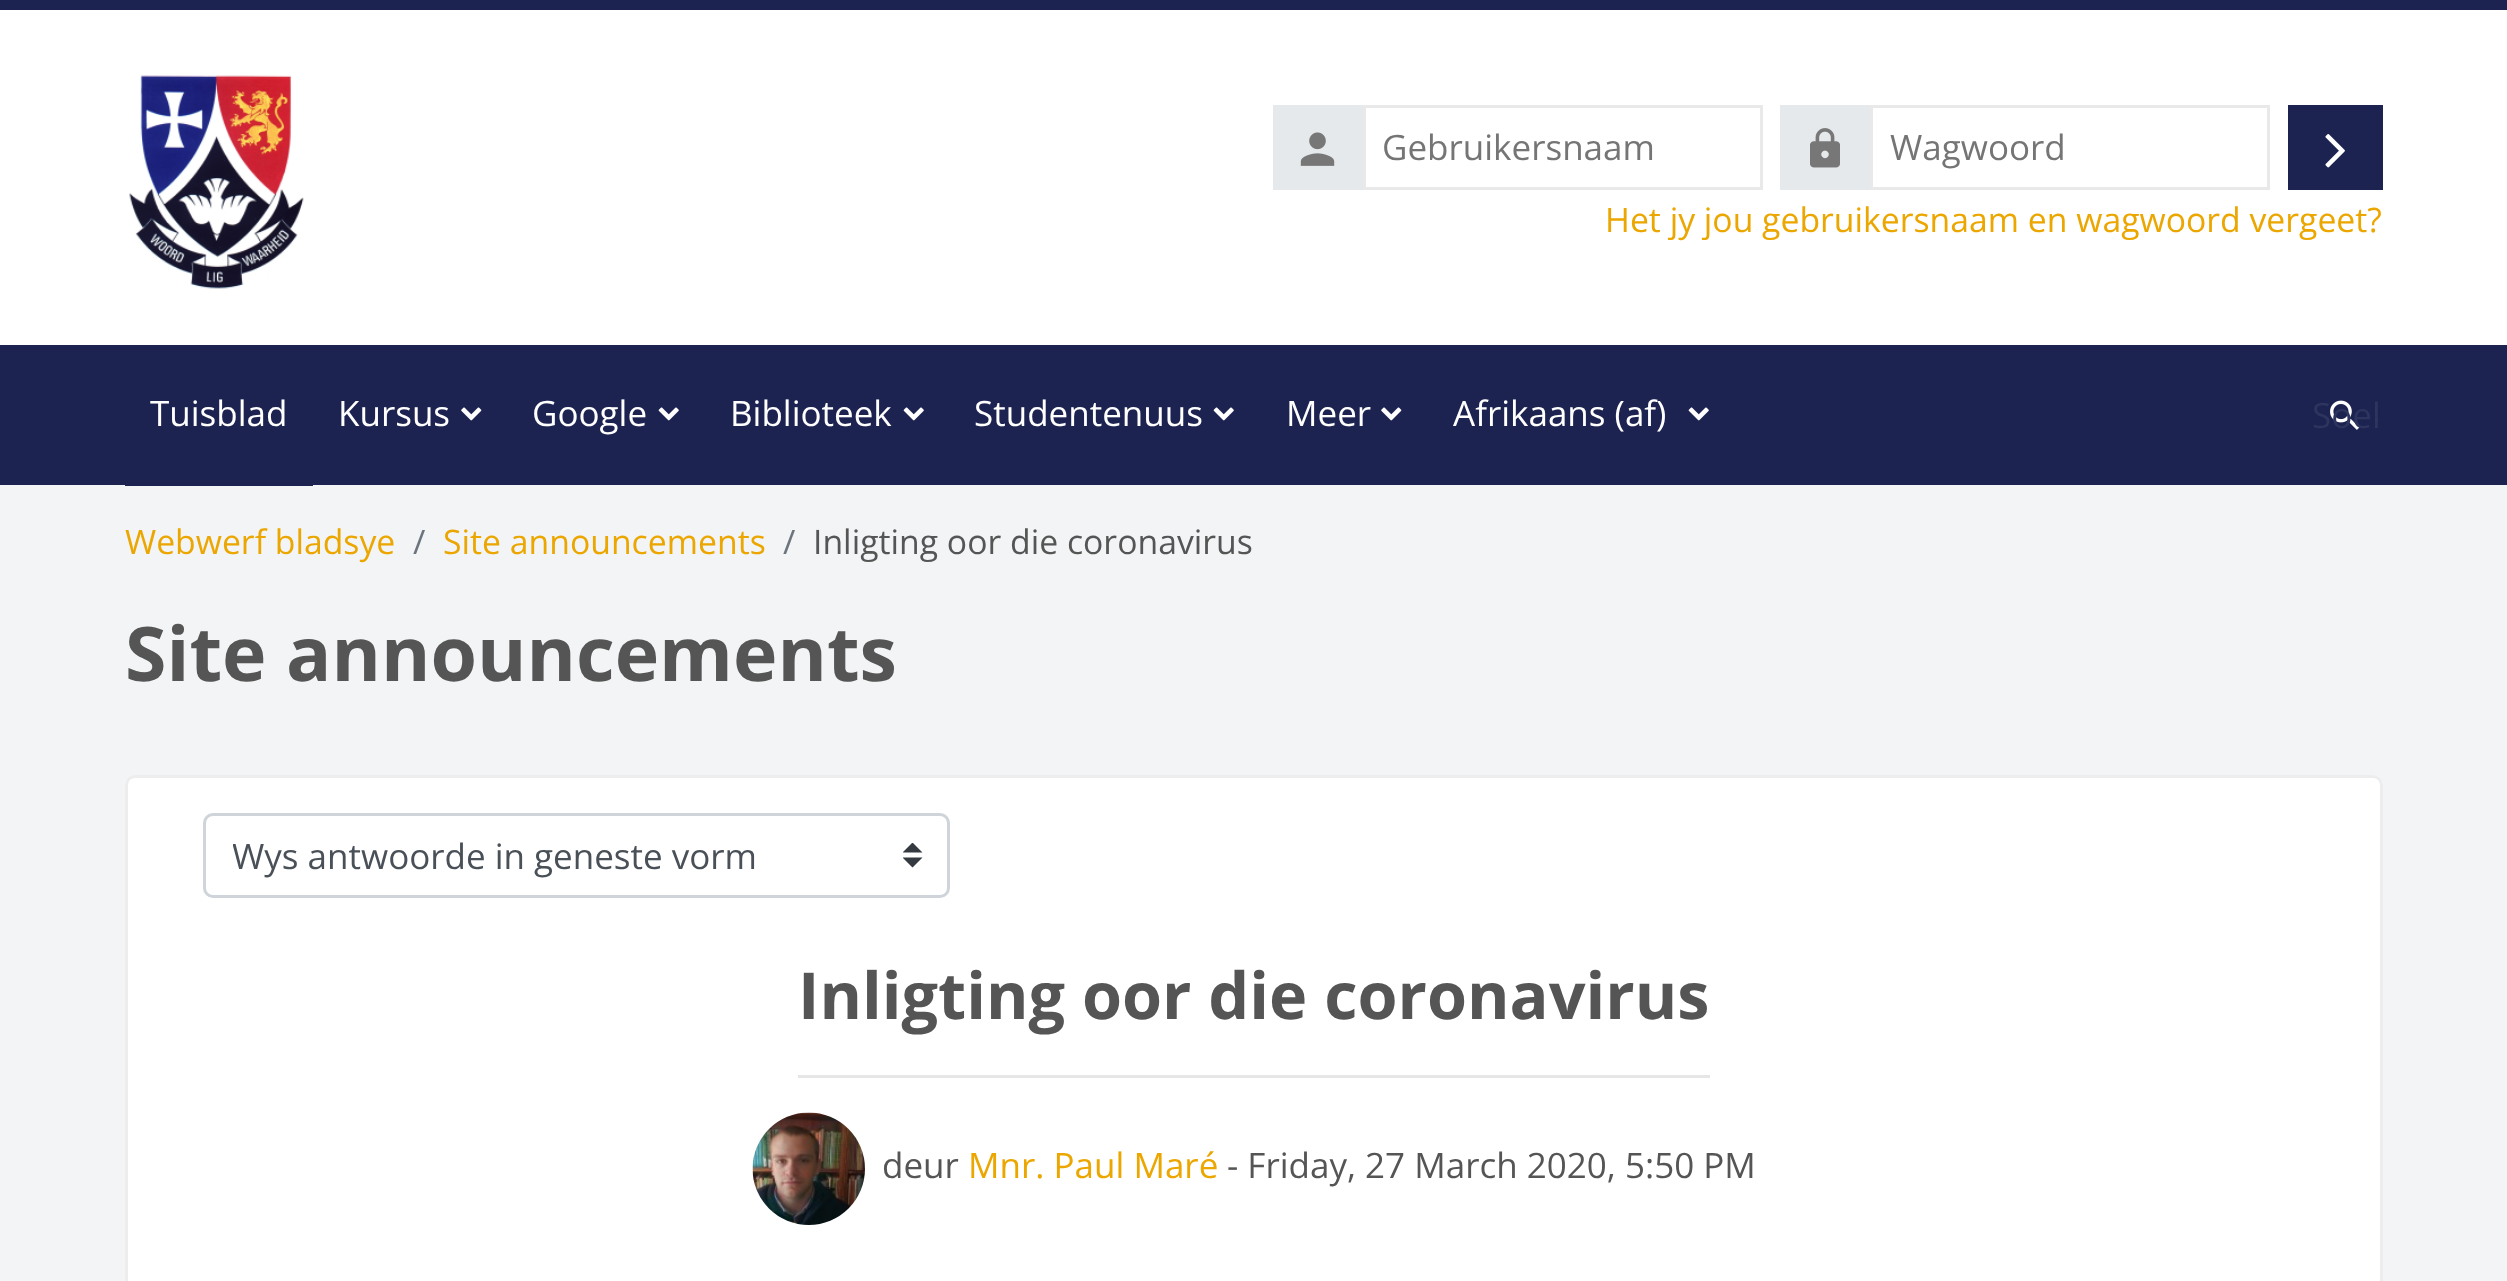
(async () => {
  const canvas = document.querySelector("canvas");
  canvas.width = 2507;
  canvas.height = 1281;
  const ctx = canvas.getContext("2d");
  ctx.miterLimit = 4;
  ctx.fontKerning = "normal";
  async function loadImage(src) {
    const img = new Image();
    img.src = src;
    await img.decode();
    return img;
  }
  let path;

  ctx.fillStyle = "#f2f4f6";
  ctx.fillRect(0, 0, 2507, 1281);
  ctx.fillStyle = "#1c2350";
  ctx.fillRect(0, 0, 2507, 10);
  ctx.fillStyle = "#ffffff";
  ctx.fillRect(0, 10, 2507, 335);
  ctx.drawImage(await loadImage("img/1.png"), 129, 75, 175, 214);
  ctx.fillStyle = "#e6e9ec";
  ctx.fillRect(1273, 105, 90, 85);
  ctx.drawImage(await loadImage("img/2.png"), 1300, 132, 35, 34);
  ctx.strokeStyle = "#e9e9e9";
  ctx.lineWidth = 3;
  ctx.strokeRect(1364.5, 106.5, 397, 82);
  ctx.fillRect(1780, 105, 90, 85);
  ctx.drawImage(await loadImage("img/3.png"), 1810, 128, 30, 40);
  ctx.strokeRect(1871.5, 106.5, 397, 82);
  ctx.fillStyle = "#1c2350";
  ctx.fillRect(2288, 105, 95, 85);
  ctx.drawImage(await loadImage("img/4.png"), 2325, 134, 20, 34);
  ctx.fillRect(0, 345, 2507, 140);
  ctx.fillRect(125, 485, 188, 1);
  ctx.drawImage(await loadImage("img/5.png"), 461, 407, 21, 14);
  ctx.drawImage(await loadImage("img/6.png"), 658, 407, 21, 14);
  ctx.drawImage(await loadImage("img/6.png"), 903, 407, 21, 14);
  ctx.drawImage(await loadImage("img/6.png"), 1213, 407, 21, 14);
  ctx.drawImage(await loadImage("img/5.png"), 1381, 407, 21, 14);
  ctx.drawImage(await loadImage("img/6.png"), 1688, 407, 21, 14);
  ctx.drawImage(await loadImage("img/7.png"), 2330, 400, 30, 30);
  ctx.fillStyle = "#ffffff";
  path = new Path2D("M135 775H2373C2378.5 775 2383 779.5 2383 785V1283H125V785C125 779.5 129.5 775 135 775Z");
  ctx.fill(path);
  ctx.beginPath();
  ctx.roundRect(126.5, 776.5, 2255, 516, 8.5);
  ctx.strokeStyle = "rgba(0, 0, 0, 0.07)";
  ctx.stroke();
  ctx.save();
  ctx.beginPath();
  ctx.rect(903, 843, 20, 25);
  ctx.clip();
  ctx.fillStyle = "#343a40";
  path = new Path2D("M912.5 842.5L902.5 852.5H922.5ZM912.5 867.5L902.5 857.5H922.5Z");
  ctx.fill(path);
  ctx.restore();
  ctx.beginPath();
  ctx.roundRect(204.5, 814.5, 744, 82, 8.5);
  ctx.strokeStyle = "#ced4da";
  ctx.stroke();
  ctx.fillStyle = "#e6e6e6";
  ctx.fillRect(798, 1075, 912, 3);
  ctx.drawImage(await loadImage("img/8.png"), 752, 1112, 113, 113);
  ctx.font = "35px Open Sans";
  ctx.fillStyle = "#757575";
  ctx.fillText("Gebruikersnaam", 1382, 160);
  ctx.fillText("Wagwoord", 1890, 160);
  ctx.font = "33.75px Open Sans";
  ctx.fillStyle = "#eba600";
  ctx.fillText("Het jy jou gebruikersnaam en wagwoord vergeet?", 1605, 232);
  ctx.font = "35px Open Sans";
  ctx.fillStyle = "#ffffff";
  for (const [text, x, y] of [
    ["Tuisblad", 150, 426],
    ["Kursus", 338, 426],
    ["Google", 532, 426],
    ["Biblioteek", 730, 426],
    ["Studentenuus", 974, 426],
    ["Meer", 1286, 426],
    ["Afrikaans (af)", 1453, 426],
  ]) {
    ctx.fillText(text, x, y);
  }
  ctx.save();
  ctx.beginPath();
  ctx.rect(2313, 390, 65, 48);
  ctx.clip();
  ctx.fillStyle = "#2d345d";
  ctx.fillText("Soek", 2312, 428);
  ctx.restore();
  ctx.font = "33.75px Open Sans";
  ctx.fillStyle = "#eba600";
  ctx.fillText("Webwerf bladsye", 125, 554);
  ctx.fillStyle = "#6c757d";
  ctx.fillText("/", 413, 554);
  ctx.fillStyle = "#eba600";
  ctx.fillText("Site announcements", 443, 554);
  ctx.fillStyle = "#6c757d";
  ctx.fillText("/", 783, 554);
  ctx.fillStyle = "#555555";
  ctx.fillText("Inligting oor die coronavirus", 813, 554);
  ctx.font = "bold 75.25px Open Sans";
  ctx.fillText("Site announcements", 125, 681);
  ctx.save();
  ctx.beginPath();
  ctx.rect(233, 830, 655, 53);
  ctx.clip();
  ctx.font = "35px Open Sans";
  ctx.fillStyle = "#495057";
  ctx.fillText("Wys antwoorde in geneste vorm", 232, 869);
  ctx.restore();
  ctx.font = "bold 64.75px Open Sans";
  ctx.fillText("Inligting oor die coronavirus", 798, 1019);
  ctx.font = "35px Open Sans";
  ctx.fillText("deur", 882, 1178);
  ctx.fillStyle = "#eba600";
  ctx.fillText("Mnr. Paul Maré", 968, 1178);
  ctx.fillStyle = "#555555";
  ctx.fillText("- Friday, 27 March 2020, 5:50 PM", 1227, 1178);
})();
